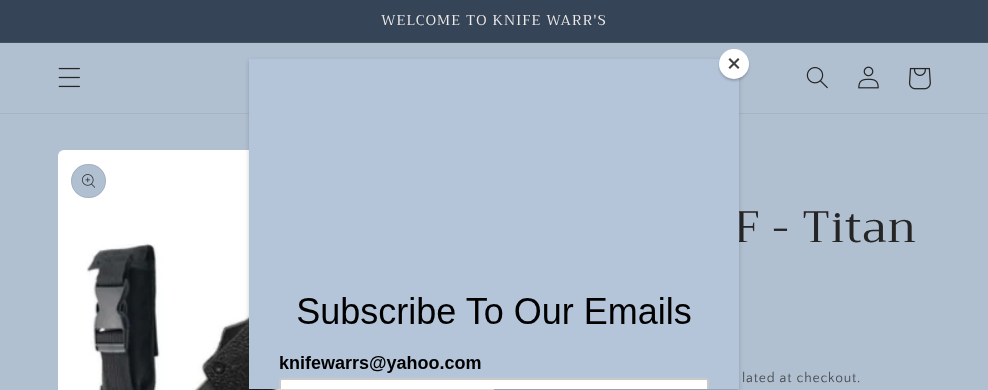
(async () => {
  const canvas = document.querySelector("canvas");
  canvas.width = 988;
  canvas.height = 390;
  const ctx = canvas.getContext("2d");
  ctx.miterLimit = 4;
  ctx.fontKerning = "normal";
  async function loadImage(src) {
    const img = new Image();
    img.src = src;
    await img.decode();
    return img;
  }
  let path;

  ctx.fillStyle = "#b1c0d1";
  ctx.fillRect(0, 0, 988, 390);
  for (const [x, y, w, h, color] of [
    [0, 0, 988, 42, "#354456"],
    [0, 42, 988, 1, "#445162"],
    [0, 113, 988, 1, "#a6b4c3"],
  ]) {
    ctx.fillStyle = color;
    ctx.fillRect(x, y, w, h);
  }
  ctx.drawImage(await loadImage("img/6.png"), 58, 150, 436, 240);
  ctx.fillStyle = "rgba(0, 0, 0, 0.2)";
  ctx.filter = "blur(2px)";
  ctx.beginPath();
  ctx.rect(249, 61, 490, 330);
  ctx.fill();
  ctx.filter = "none";
  ctx.drawImage(await loadImage("img/2.png"), 58, 67, 22, 21);
  ctx.drawImage(await loadImage("img/3.png"), 806, 67, 22, 22);
  ctx.drawImage(await loadImage("img/4.png"), 858, 66, 21, 23);
  ctx.drawImage(await loadImage("img/5.png"), 908, 67, 23, 23);
  ctx.fillStyle = "#b1c0d1";
  ctx.beginPath();
  ctx.roundRect(71, 164, 35, 34, 17);
  ctx.fill();
  ctx.beginPath();
  ctx.roundRect(71.5, 164.5, 34, 33, 16.5);
  ctx.strokeStyle = "rgba(37, 37, 37, 0.1)";
  ctx.stroke();
  ctx.drawImage(await loadImage("img/7.png"), 82, 174, 13, 14);
  ctx.letterSpacing = "1.15px";
  ctx.font = "14.25px Trirong";
  ctx.fillStyle = "#efecec";
  ctx.fillText("WELCOME TO KNIFE WARR'S", 381, 25);
  ctx.letterSpacing = "0.75px";
  ctx.font = "44px Trirong";
  ctx.fillStyle = "#252525";
  ctx.fillText("F - Titan", 734, 242);
  ctx.drawImage(await loadImage("img/1.png"), 249, 59, 490, 330);
  ctx.fillStyle = "rgba(0, 0, 0, 0.2)";
  ctx.filter = "blur(1px)";
  ctx.beginPath();
  ctx.roundRect(719, 51, 30, 30, 15);
  ctx.fill();
  ctx.filter = "none";
  ctx.fillStyle = "#ffffff";
  ctx.beginPath();
  ctx.arc(734, 64, 15, 0, Math.PI * 2);
  ctx.fill();
  ctx.fillStyle = "#414141";
  path = new Path2D("M738 58L739.5 59.5L730 69L728.5 67.5Z");
  ctx.fill(path);
  path = new Path2D("M728.5 59.5L730 58L739.5 67.5L738 69Z");
  ctx.fill(path);
  ctx.letterSpacing = "0.8px";
  ctx.font = "13.75px Quattrocento Sans";
  ctx.fillStyle = "#484c50";
  ctx.fillText("lated at checkout.", 742, 382);
})();
